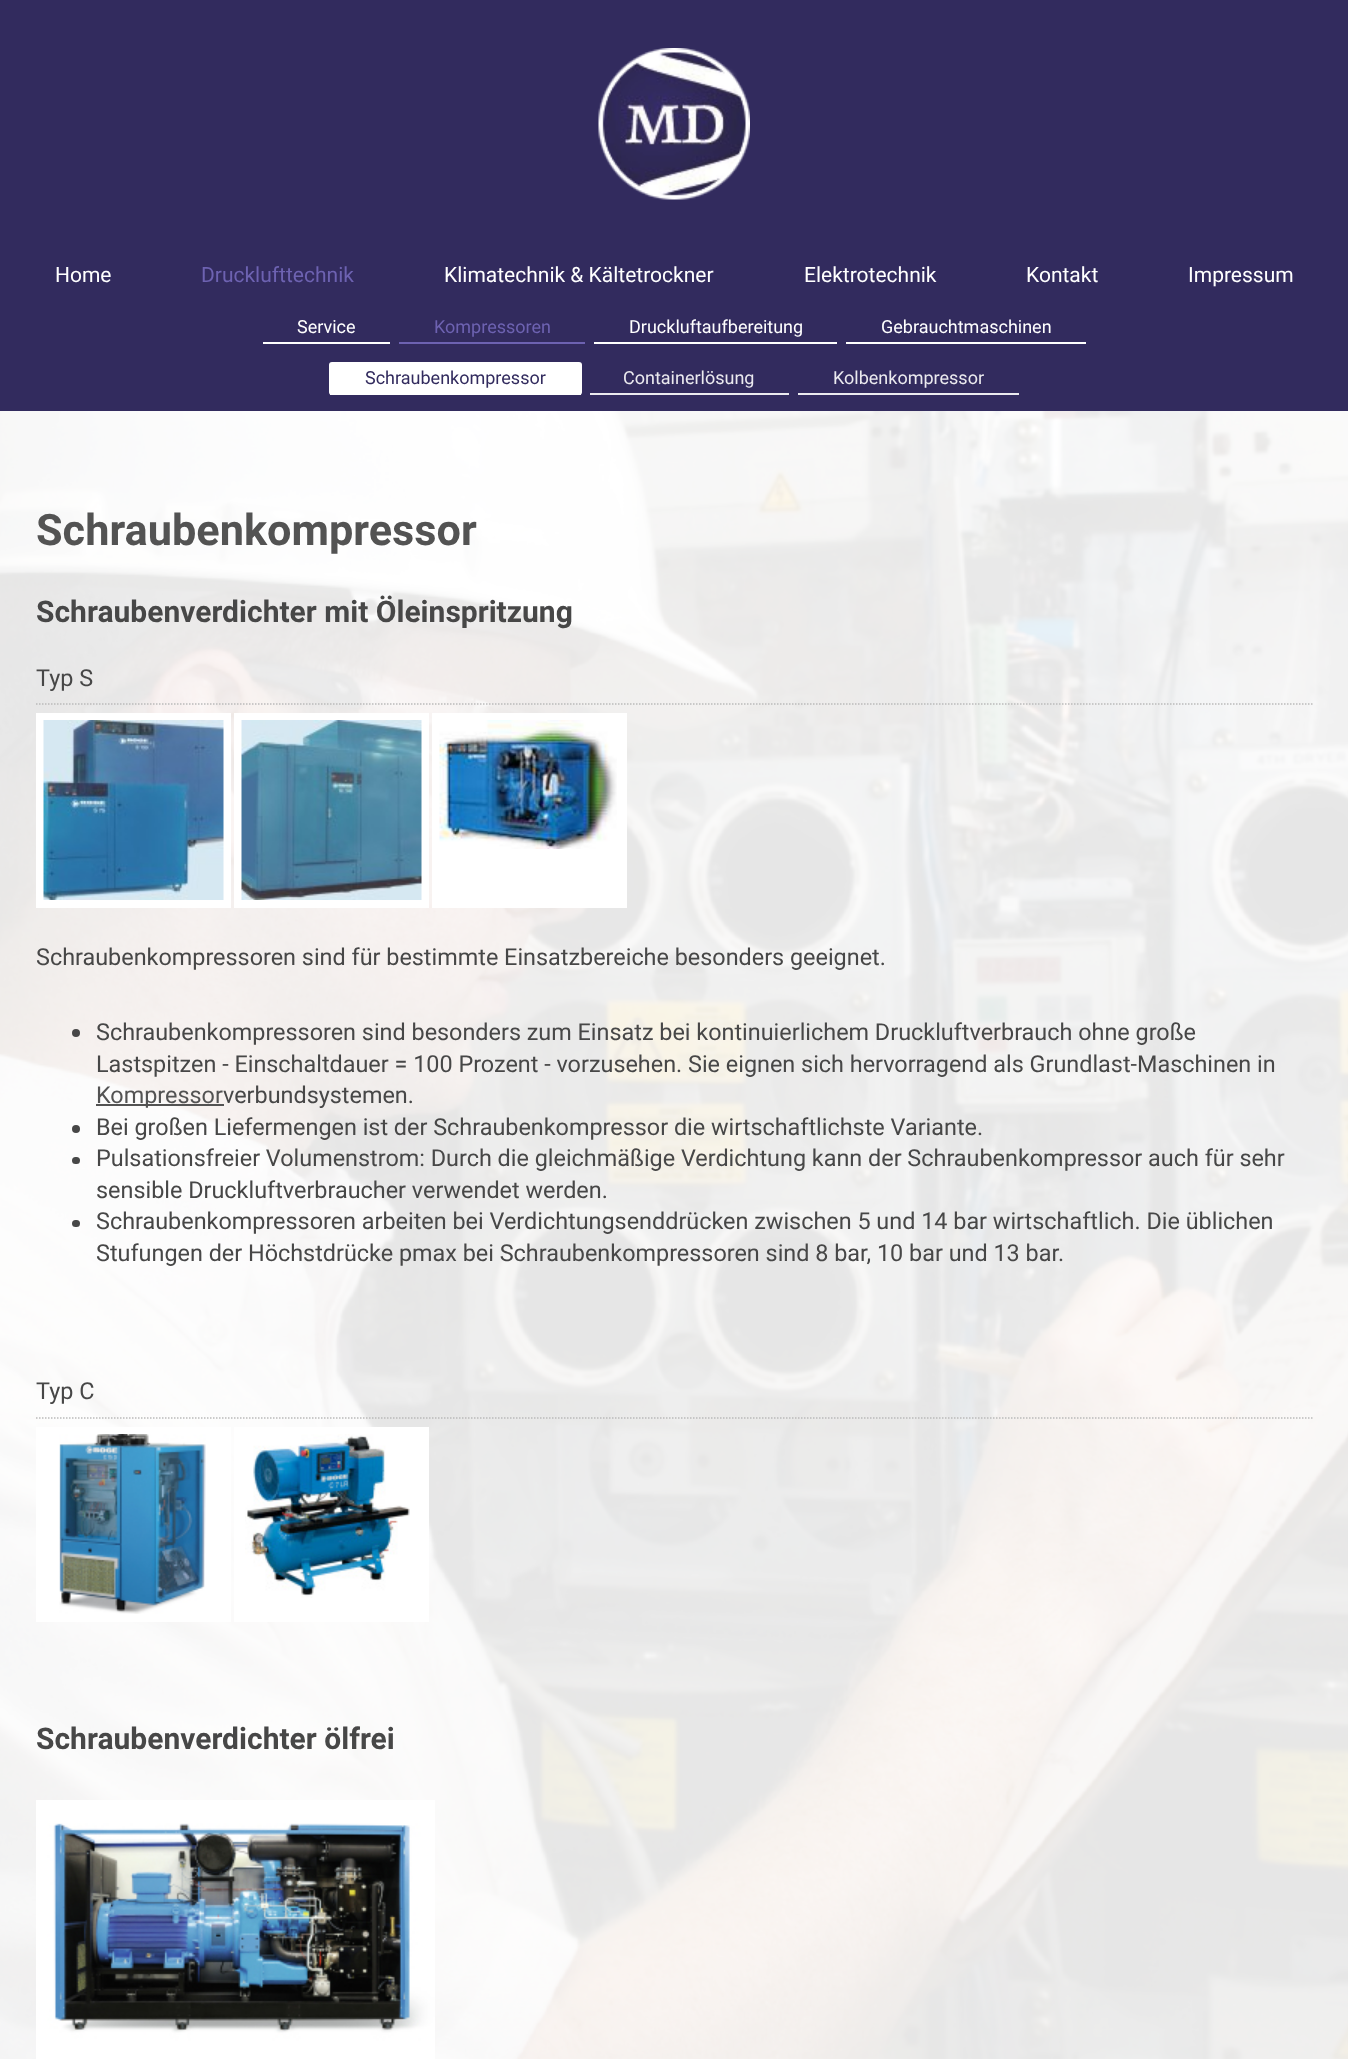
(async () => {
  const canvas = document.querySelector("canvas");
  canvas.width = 1348;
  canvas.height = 2059;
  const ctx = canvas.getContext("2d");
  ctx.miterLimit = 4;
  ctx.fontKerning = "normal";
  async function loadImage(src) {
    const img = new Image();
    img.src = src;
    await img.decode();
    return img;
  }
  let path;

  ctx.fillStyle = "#ffffff";
  ctx.fillRect(0, 0, 1348, 2059);
  ctx.drawImage(await loadImage("img/1.png"), 0, 411, 1348, 1648);
  ctx.fillStyle = "#322b5e";
  ctx.fillRect(0, 0, 1348, 411);
  ctx.drawImage(await loadImage("img/2.png"), 598, 48, 152, 152);
  for (const [x, y, w, h, color] of [
    [263, 342, 127, 2, "#ffffff"],
    [399, 342, 186, 2, "#6d62b1"],
    [594, 342, 243, 2, "#ffffff"],
    [846, 342, 240, 2, "#ffffff"],
  ]) {
    ctx.fillStyle = color;
    ctx.fillRect(x, y, w, h);
  }
  ctx.beginPath();
  ctx.roundRect(329, 362, 253, 33, 3);
  ctx.fill();
  for (const [x, y, w, h, color] of [
    [330, 394, 251, 1, "#ffffff"],
    [590, 393, 199, 2, "#ebeaef"],
    [798, 393, 221, 2, "#ebeaef"],
    [0, 411, 1348, 1648, "rgba(255, 255, 255, 0.9)"],
  ]) {
    ctx.fillStyle = color;
    ctx.fillRect(x, y, w, h);
  }
  path = new Path2D("M36 704H1312.5");
  ctx.strokeStyle = "#bababa";
  ctx.lineWidth = 1.5;
  ctx.setLineDash([1.5, 1.5]);
  ctx.stroke(path);
  ctx.fillStyle = "#ffffff";
  ctx.fillRect(36, 713, 195, 195);
  ctx.drawImage(await loadImage("img/3.png"), 43, 720, 181, 180);
  ctx.fillRect(234, 713, 195, 195);
  ctx.drawImage(await loadImage("img/4.png"), 241, 720, 181, 180);
  ctx.fillRect(432, 713, 195, 195);
  ctx.drawImage(await loadImage("img/5.png"), 439, 720, 178, 129);
  ctx.fillStyle = "#474747";
  ctx.beginPath();
  ctx.arc(76, 1033, 4, 0, Math.PI * 2);
  ctx.fill();
  ctx.fillStyle = "#535353";
  ctx.fillRect(96, 1104, 128, 2);
  ctx.fillStyle = "#474747";
  ctx.beginPath();
  ctx.arc(76, 1129, 4, 0, Math.PI * 2);
  ctx.fill();
  ctx.beginPath();
  ctx.roundRect(72, 1157, 8, 7, 3.5);
  ctx.fill();
  ctx.beginPath();
  ctx.roundRect(72, 1220, 8, 7, 3.5);
  ctx.fill();
  path = new Path2D("M36 1418H1312.5");
  ctx.stroke(path);
  ctx.fillStyle = "#ffffff";
  ctx.fillRect(36, 1427, 195, 195);
  ctx.drawImage(await loadImage("img/6.png"), 59, 1434, 147, 180);
  ctx.fillRect(234, 1427, 195, 195);
  ctx.drawImage(await loadImage("img/7.png"), 245, 1434, 165, 164);
  ctx.drawImage(await loadImage("img/8.png"), 36, 1800, 399, 259);
  ctx.font = "21px Roboto";
  ctx.fillText("Home", 55, 282);
  ctx.fillStyle = "#6d62b1";
  ctx.fillText("Drucklufttechnik", 201, 282);
  ctx.fillStyle = "#ffffff";
  for (const [text, x, y] of [
    ["Klimatechnik & Kältetrockner", 444, 282],
    ["Elektrotechnik", 804, 282],
    ["Kontakt", 1026, 282],
    ["Impressum", 1188, 282],
  ]) {
    ctx.fillText(text, x, y);
  }
  ctx.font = "18px Roboto";
  ctx.fillText("Service", 297, 333);
  ctx.fillStyle = "#6d62b1";
  ctx.fillText("Kompressoren", 434, 333);
  ctx.fillStyle = "#ffffff";
  ctx.fillText("Druckluftaufbereitung", 629, 333);
  ctx.fillText("Gebrauchtmaschinen", 881, 333);
  ctx.fillStyle = "#322b5e";
  ctx.fillText("Schraubenkompressor", 365, 384);
  ctx.fillStyle = "#ebeaef";
  ctx.fillText("Containerlösung", 623, 384);
  ctx.fillText("Kolbenkompressor", 833, 384);
  ctx.font = "bold 43.25px Roboto";
  ctx.fillStyle = "#535353";
  ctx.fillText("Schraubenkompressor", 36, 545);
  ctx.font = "bold 30px Roboto";
  ctx.fillStyle = "#474747";
  ctx.fillText("Schraubenverdichter mit Öleinspritzung", 36, 622);
  ctx.font = "23.4px Roboto";
  for (const [text, x, y] of [
    ["Typ S", 36, 686],
    ["Schraubenkompressoren sind für bestimmte Einsatzbereiche besonders geeignet.", 36, 965],
    ["Schraubenkompressoren sind besonders zum Einsatz bei kontinuierlichem Druckluftverbrauch ohne große", 96, 1040],
    ["Lastspitzen - Einschaltdauer = 100 Prozent - vorzusehen. Sie eignen sich hervorragend als Grundlast-Maschinen in", 96, 1072],
  ]) {
    ctx.fillText(text, x, y);
  }
  ctx.fillStyle = "#535353";
  ctx.fillText("Kompressor", 96, 1103);
  ctx.fillStyle = "#474747";
  for (const [text, x, y] of [
    ["verbundsystemen.", 223, 1103],
    ["Bei großen Liefermengen ist der Schraubenkompressor die wirtschaftlichste Variante.", 96, 1135],
    ["Pulsationsfreier Volumenstrom: Durch die gleichmäßige Verdichtung kann der Schraubenkompressor auch für sehr", 96, 1166],
    ["sensible Druckluftverbraucher verwendet werden.", 96, 1198],
    ["Schraubenkompressoren arbeiten bei Verdichtungsenddrücken zwischen 5 und 14 bar wirtschaftlich. Die üblichen", 96, 1229],
    ["Stufungen der Höchstdrücke pmax bei Schraubenkompressoren sind 8 bar, 10 bar und 13 bar.", 96, 1261],
    ["Typ C", 36, 1399],
  ]) {
    ctx.fillText(text, x, y);
  }
  ctx.font = "bold 30px Roboto";
  ctx.fillText("Schraubenverdichter ölfrei", 36, 1749);
})();
